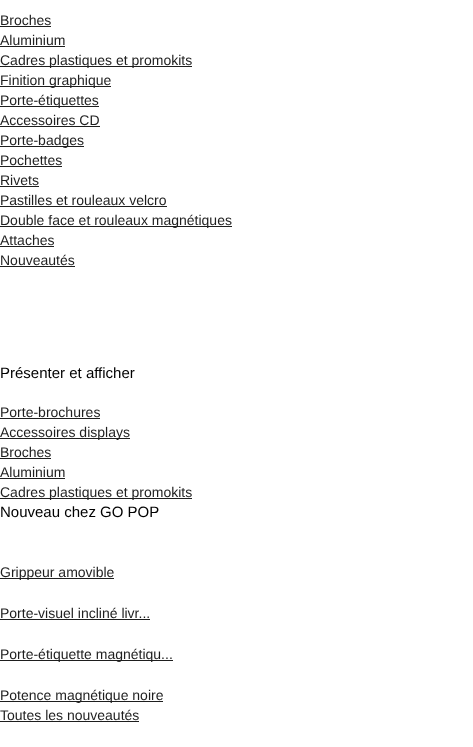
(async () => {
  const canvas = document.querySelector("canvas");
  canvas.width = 473;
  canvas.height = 747;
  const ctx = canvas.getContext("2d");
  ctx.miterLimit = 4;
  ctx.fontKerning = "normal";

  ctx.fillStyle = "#ffffff";
  ctx.fillRect(0, 0, 473, 747);
  for (const [x, y, w, h, color] of [
    [0, 26, 51, 1, "#1e1e1e"],
    [0, 46, 65, 1, "#1e1e1e"],
    [0, 66, 192, 1, "#1e1e1e"],
    [0, 86, 111, 1, "#1e1e1e"],
    [0, 106, 99, 1, "#1e1e1e"],
    [0, 126, 100, 1, "#1e1e1e"],
    [0, 146, 84, 1, "#1e1e1e"],
    [0, 166, 62, 1, "#1e1e1e"],
    [0, 186, 39, 1, "#1e1e1e"],
    [0, 206, 167, 1, "#1e1e1e"],
    [0, 226, 232, 1, "#1e1e1e"],
    [0, 246, 54, 1, "#1e1e1e"],
    [0, 266, 75, 1, "#1e1e1e"],
    [0, 418, 100, 1, "#1e1e1e"],
    [0, 438, 130, 1, "#1e1e1e"],
    [0, 458, 51, 1, "#1e1e1e"],
    [0, 478, 65, 1, "#1e1e1e"],
    [0, 498, 192, 1, "#1e1e1e"],
    [0, 578, 114, 1, "#1e1e1e"],
    [0, 619, 150, 1, "#1e1e1e"],
    [0, 660, 173, 1, "#1e1e1e"],
    [0, 701, 163, 1, "#1e1e1e"],
    [0, 721, 139, 1, "#1e1e1e"],
  ]) {
    ctx.fillStyle = color;
    ctx.fillRect(x, y, w, h);
  }
  ctx.font = "14px Liberation Sans";
  for (const [text, x, y] of [
    ["Broches", 0, 25],
    ["Aluminium", 0, 45],
    ["Cadres plastiques et promokits", 0, 65],
    ["Finition graphique", 0, 85],
    ["Porte-étiquettes", 0, 105],
    ["Accessoires CD", 0, 125],
    ["Porte-badges", 0, 145],
    ["Pochettes", 0, 165],
    ["Rivets", 0, 185],
    ["Pastilles et rouleaux velcro", 0, 205],
    ["Double face et rouleaux magnétiques", 0, 225],
    ["Attaches", 0, 245],
    ["Nouveautés", 0, 265],
  ]) {
    ctx.fillText(text, x, y);
  }
  ctx.font = "15px Liberation Sans";
  ctx.fillStyle = "#000000";
  ctx.fillText("Présenter et afficher", 0, 378);
  ctx.font = "14px Liberation Sans";
  ctx.fillStyle = "#1e1e1e";
  for (const [text, x, y] of [
    ["Porte-brochures", 0, 417],
    ["Accessoires displays", 0, 437],
    ["Broches", 0, 457],
    ["Aluminium", 0, 477],
    ["Cadres plastiques et promokits", 0, 497],
  ]) {
    ctx.fillText(text, x, y);
  }
  ctx.font = "15px Liberation Sans";
  ctx.fillStyle = "#000000";
  ctx.fillText("Nouveau chez GO POP", 0, 517);
  ctx.font = "14px Liberation Sans";
  ctx.fillStyle = "#1e1e1e";
  for (const [text, x, y] of [
    ["Grippeur amovible", 0, 577],
    ["Porte-visuel incliné livr...", 0, 618],
    ["Porte-étiquette magnétiqu...", 0, 659],
    ["Potence magnétique noire", 0, 700],
    ["Toutes les nouveautés", 0, 720],
  ]) {
    ctx.fillText(text, x, y);
  }
})();
